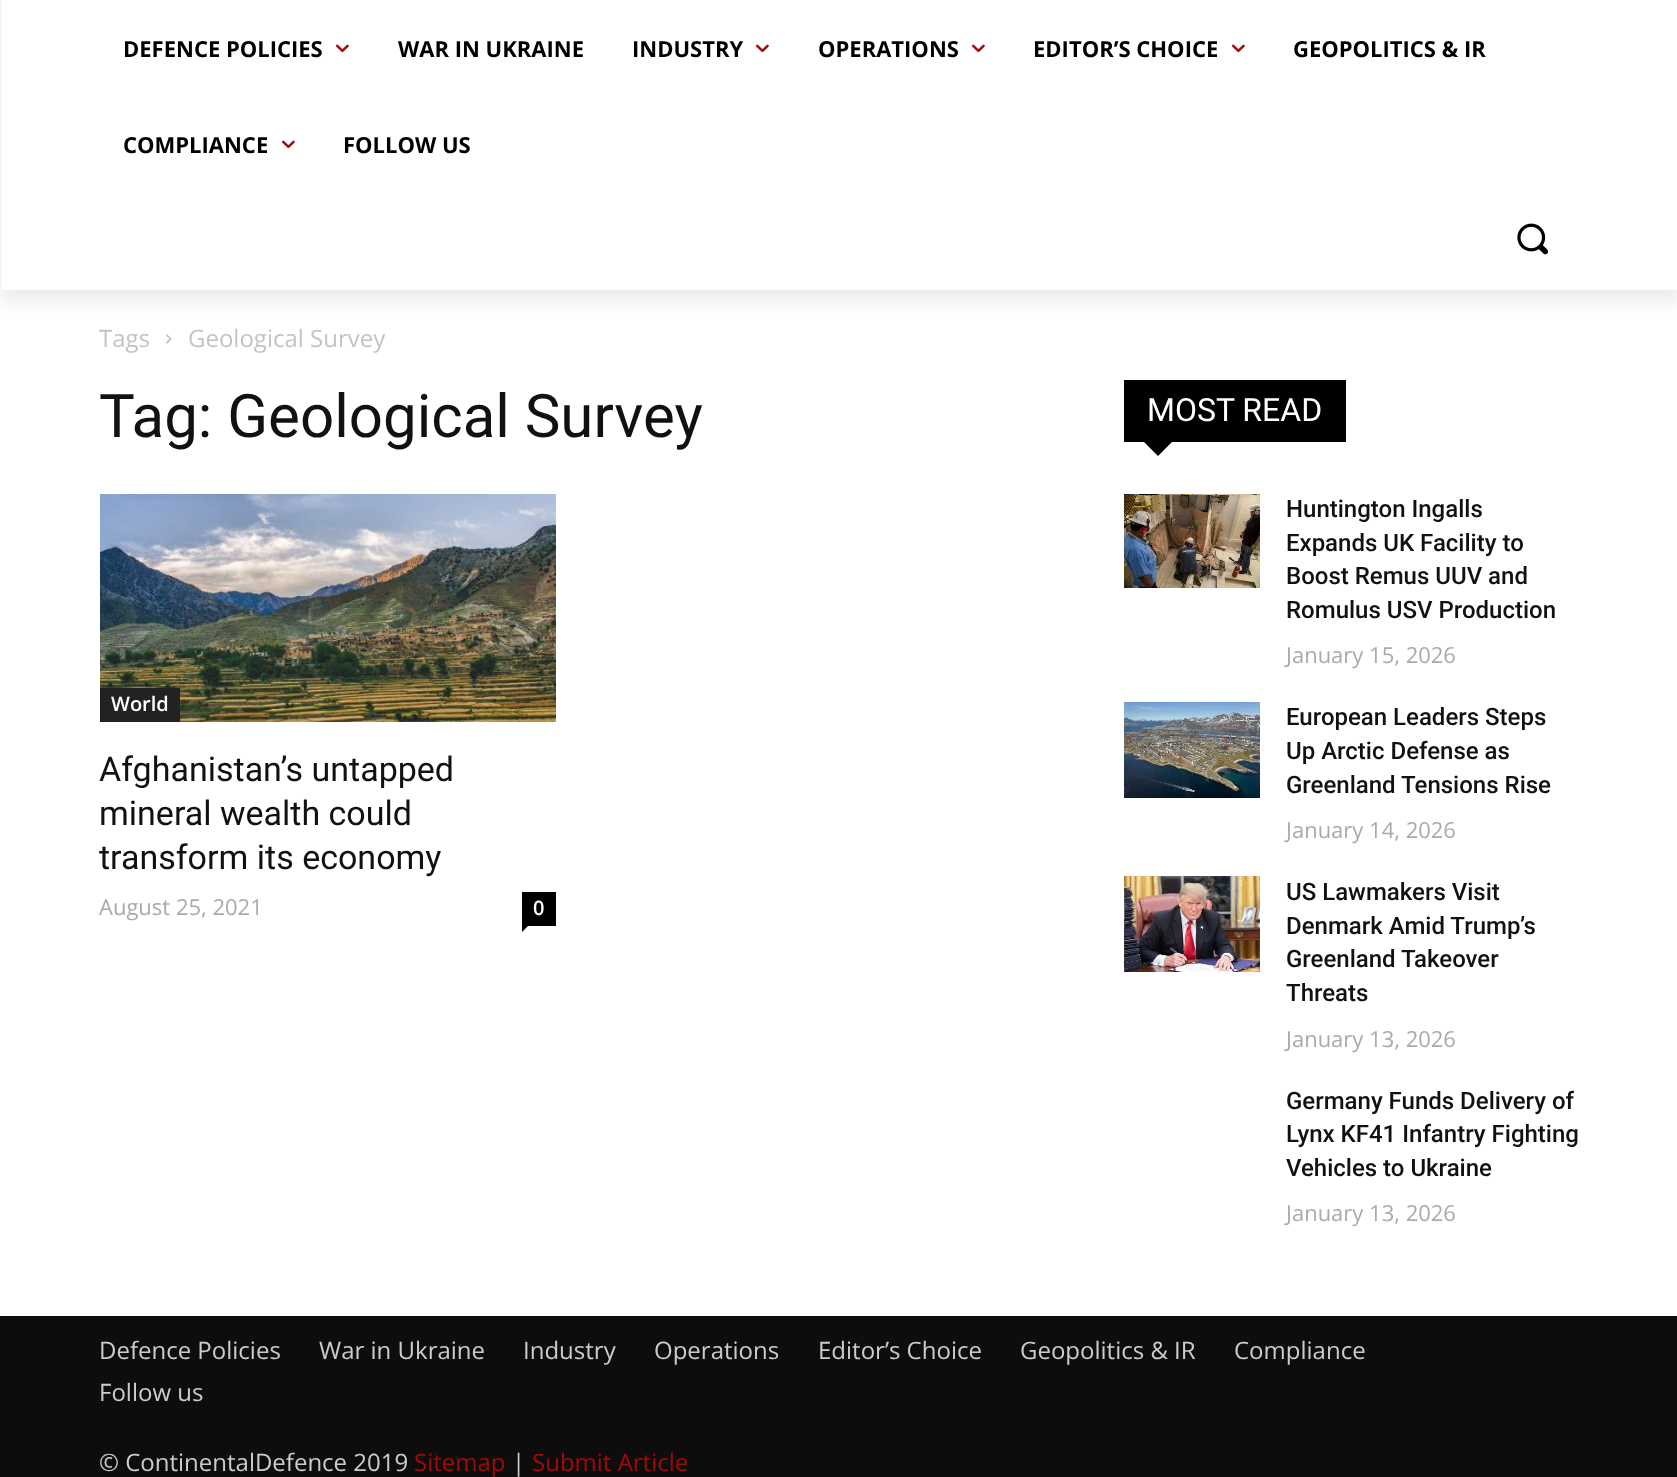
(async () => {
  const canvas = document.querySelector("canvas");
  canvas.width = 1677;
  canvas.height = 1477;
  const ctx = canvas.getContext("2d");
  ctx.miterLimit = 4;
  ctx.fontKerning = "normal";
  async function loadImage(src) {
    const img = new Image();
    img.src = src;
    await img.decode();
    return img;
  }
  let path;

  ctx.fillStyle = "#ffffff";
  ctx.fillRect(0, 0, 1677, 1477);
  ctx.save();
  path = new Path2D("M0 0H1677V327H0ZM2-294H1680V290H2Z");
  ctx.clip(path, "evenodd");
  ctx.fillStyle = "rgba(0, 0, 0, 0.08)";
  ctx.filter = "blur(8px)";
  ctx.beginPath();
  ctx.rect(2, -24, 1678, 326);
  ctx.fill();
  ctx.filter = "none";
  ctx.restore();
  ctx.drawImage(await loadImage("img/1.png"), 336, 44, 13, 9);
  ctx.drawImage(await loadImage("img/1.png"), 756, 44, 13, 9);
  ctx.drawImage(await loadImage("img/1.png"), 972, 44, 13, 9);
  ctx.drawImage(await loadImage("img/1.png"), 1232, 44, 13, 9);
  ctx.drawImage(await loadImage("img/1.png"), 282, 140, 13, 9);
  ctx.drawImage(await loadImage("img/2.png"), 1517, 223, 32, 32);
  ctx.drawImage(await loadImage("img/3.png"), 166, 334, 6, 10);
  ctx.drawImage(await loadImage("img/4.png"), 100, 494, 456, 228);
  ctx.fillStyle = "#222222";
  ctx.fillRect(100, 688, 80, 34);
  ctx.fillStyle = "#000000";
  ctx.fillRect(522, 892, 34, 34);
  path = new Path2D("M522 926H528L522 932Z");
  ctx.fill(path);
  ctx.fillRect(1124, 380, 222, 62);
  path = new Path2D("M1144 442H1172L1158 456Z");
  ctx.fill(path);
  ctx.drawImage(await loadImage("img/5.png"), 1124, 494, 136, 94);
  ctx.drawImage(await loadImage("img/6.png"), 1124, 702, 136, 96);
  ctx.drawImage(await loadImage("img/7.png"), 1124, 876, 136, 96);
  ctx.fillStyle = "#0d0d0d";
  ctx.fillRect(0, 1316, 1677, 161);
  ctx.font = "bold 22px Open Sans";
  ctx.fillStyle = "#000000";
  for (const [text, x, y] of [
    ["DEFENCE POLICIES", 123, 57],
    ["WAR IN UKRAINE", 398, 57],
    ["INDUSTRY", 632, 57],
    ["OPERATIONS", 818, 57],
    ["EDITOR’S CHOICE", 1033, 57],
    ["GEOPOLITICS & IR", 1293, 57],
    ["COMPLIANCE", 123, 153],
    ["FOLLOW US", 343, 153],
  ]) {
    ctx.fillText(text, x, y);
  }
  ctx.font = "24px Open Sans";
  ctx.fillStyle = "#c3c3c3";
  ctx.fillText("Tags", 99, 347);
  ctx.fillText("Geological Survey", 188, 347);
  ctx.font = "60px Roboto";
  ctx.fillStyle = "#111111";
  ctx.fillText("Tag: Geological Survey", 99, 437);
  ctx.font = "600 20px Open Sans";
  ctx.fillStyle = "#ffffff";
  ctx.fillText("World", 111, 711);
  ctx.font = "34px Roboto";
  ctx.fillStyle = "#111111";
  for (const [text, x, y] of [
    ["Afghanistan’s untapped", 99, 781],
    ["mineral wealth could", 99, 825],
    ["transform its economy", 99, 869],
  ]) {
    ctx.fillText(text, x, y);
  }
  ctx.font = "22px Open Sans";
  ctx.fillStyle = "#aaaaaa";
  ctx.fillText("August 25, 2021", 99, 915);
  ctx.font = "600 20px Open Sans";
  ctx.fillStyle = "#ffffff";
  ctx.fillText("0", 533, 915);
  ctx.font = "32px Roboto";
  ctx.fillText("MOST READ", 1147, 421);
  ctx.font = "500 24px Roboto";
  ctx.fillStyle = "#111111";
  for (const [text, x, y] of [
    ["Huntington Ingalls", 1286, 517],
    ["Expands UK Facility to", 1286, 551],
    ["Boost Remus UUV and", 1286, 584],
    ["Romulus USV Production", 1286, 618],
  ]) {
    ctx.fillText(text, x, y);
  }
  ctx.font = "22px Open Sans";
  ctx.fillStyle = "#aaaaaa";
  ctx.fillText("January 15, 2026", 1286, 663);
  ctx.font = "500 24px Roboto";
  ctx.fillStyle = "#111111";
  for (const [text, x, y] of [
    ["European Leaders Steps", 1286, 725],
    ["Up Arctic Defense as", 1286, 759],
    ["Greenland Tensions Rise", 1286, 793],
  ]) {
    ctx.fillText(text, x, y);
  }
  ctx.font = "22px Open Sans";
  ctx.fillStyle = "#aaaaaa";
  ctx.fillText("January 14, 2026", 1286, 838);
  ctx.font = "500 24px Roboto";
  ctx.fillStyle = "#111111";
  for (const [text, x, y] of [
    ["US Lawmakers Visit", 1286, 900],
    ["Denmark Amid Trump’s", 1286, 934],
    ["Greenland Takeover", 1286, 967],
    ["Threats", 1286, 1001],
  ]) {
    ctx.fillText(text, x, y);
  }
  ctx.font = "22px Open Sans";
  ctx.fillStyle = "#aaaaaa";
  ctx.fillText("January 13, 2026", 1286, 1047);
  ctx.font = "500 24px Roboto";
  ctx.fillStyle = "#111111";
  for (const [text, x, y] of [
    ["Germany Funds Delivery of", 1286, 1109],
    ["Lynx KF41 Infantry Fighting", 1286, 1142],
    ["Vehicles to Ukraine", 1286, 1176],
  ]) {
    ctx.fillText(text, x, y);
  }
  ctx.font = "22px Open Sans";
  ctx.fillStyle = "#aaaaaa";
  ctx.fillText("January 13, 2026", 1286, 1221);
  ctx.font = "24px Open Sans";
  ctx.fillStyle = "#cccccc";
  for (const [text, x, y] of [
    ["Defence Policies", 99, 1359],
    ["War in Ukraine", 319, 1359],
    ["Industry", 523, 1359],
    ["Operations", 654, 1359],
    ["Editor’s Choice", 818, 1359],
    ["Geopolitics & IR", 1020, 1359],
    ["Compliance", 1234, 1359],
    ["Follow us", 99, 1401],
    ["© ContinentalDefence 2019", 99, 1471],
  ]) {
    ctx.fillText(text, x, y);
  }
  ctx.fillStyle = "#a30909";
  ctx.fillText("Sitemap", 414, 1471);
  ctx.fillStyle = "#cccccc";
  ctx.fillText("|", 512, 1471);
  ctx.fillStyle = "#a30909";
  ctx.fillText("Submit Article", 532, 1471);
})();
